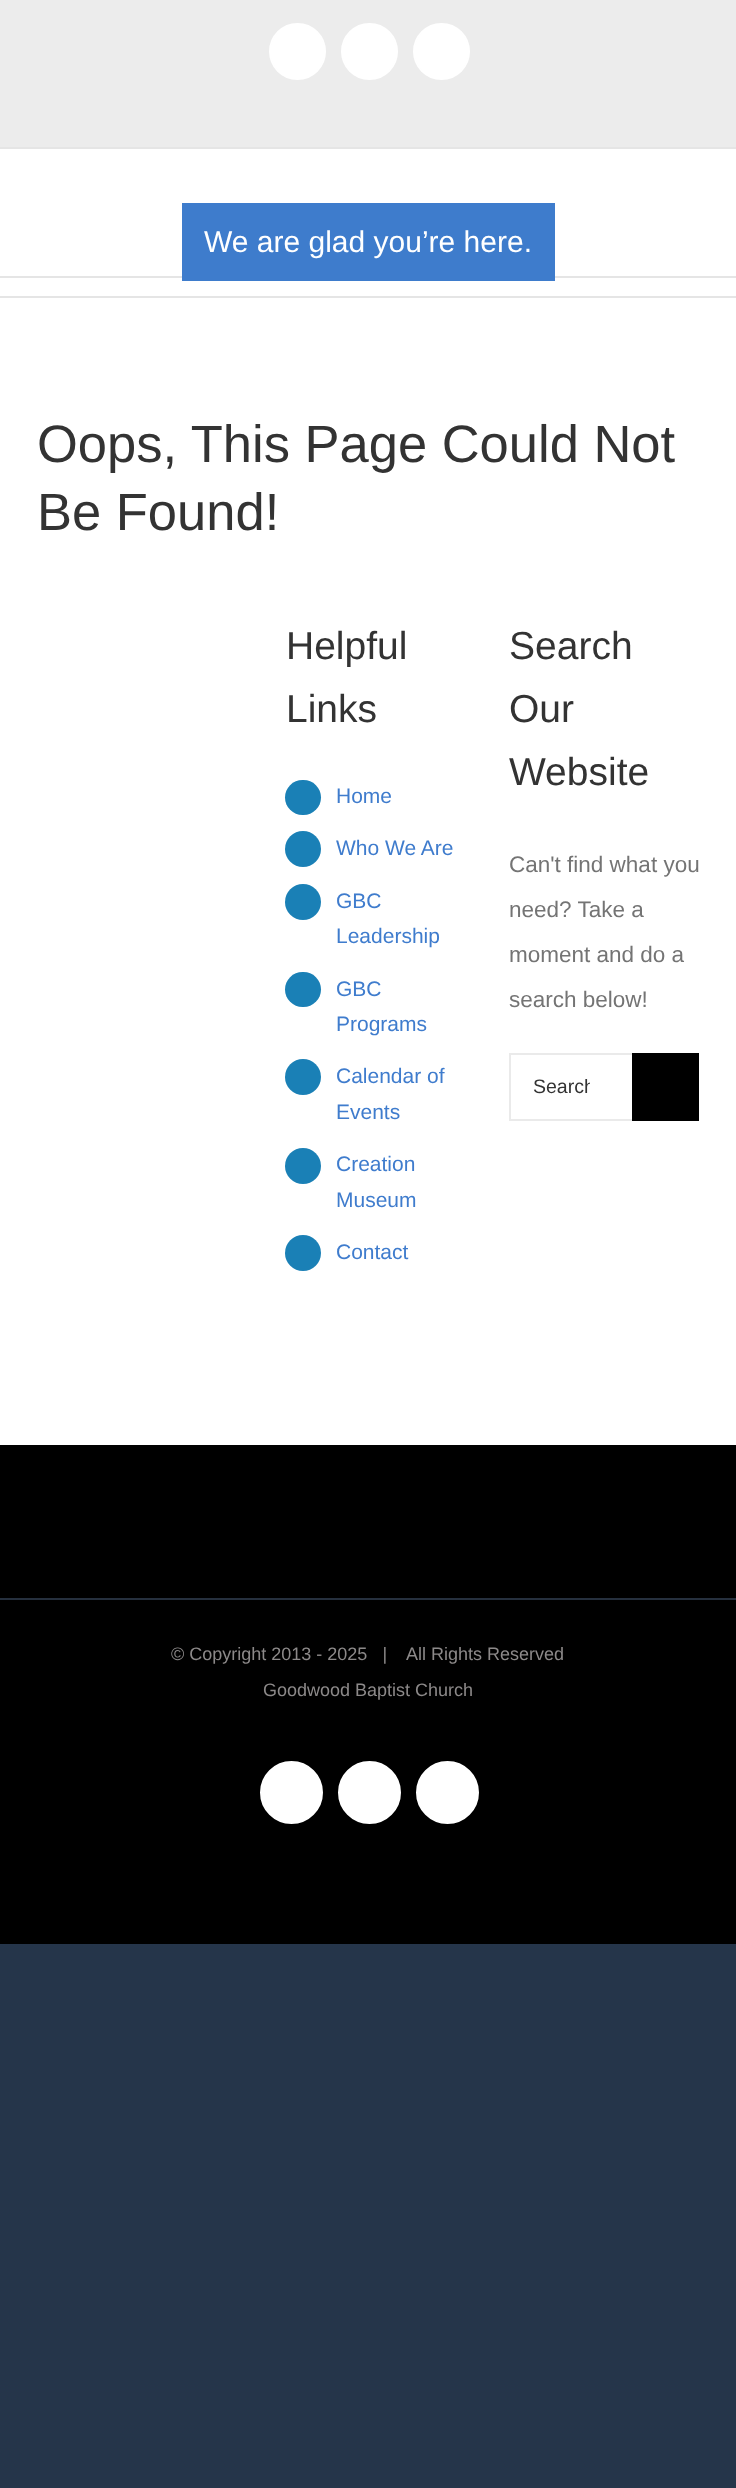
(async () => {
  const canvas = document.querySelector("canvas");
  canvas.width = 736;
  canvas.height = 2488;
  const ctx = canvas.getContext("2d");
  ctx.miterLimit = 4;
  ctx.fontKerning = "normal";

  ctx.fillStyle = "#25354a";
  ctx.fillRect(0, 0, 736, 2488);
  ctx.fillStyle = "#ececec";
  ctx.fillRect(0, 0, 736, 147);
  ctx.fillStyle = "#e5e5e5";
  ctx.fillRect(0, 147, 736, 2);
  ctx.fillStyle = "#ffffff";
  ctx.beginPath();
  ctx.arc(297.5, 51.5, 27.5, 0, Math.PI * 2);
  ctx.fill();
  ctx.strokeStyle = "#ffffff";
  ctx.lineWidth = 2;
  ctx.stroke();
  ctx.beginPath();
  ctx.arc(369.5, 51.5, 27.5, 0, Math.PI * 2);
  ctx.fill();
  ctx.stroke();
  ctx.beginPath();
  ctx.arc(441.5, 51.5, 27.5, 0, Math.PI * 2);
  ctx.fill();
  ctx.stroke();
  for (const [x, y, w, h, color] of [
    [0, 149, 736, 127, "#ffffff"],
    [0, 276, 736, 2, "#e5e5e5"],
    [0, 278, 736, 18, "#ffffff"],
    [182, 203, 373, 78, "#3e7ccc"],
    [0, 296, 736, 2, "#e5e5e5"],
    [0, 298, 736, 1147, "#ffffff"],
  ]) {
    ctx.fillStyle = color;
    ctx.fillRect(x, y, w, h);
  }
  ctx.fillStyle = "#1a80b6";
  ctx.beginPath();
  ctx.roundRect(285, 780, 36, 35, 17.5);
  ctx.fill();
  ctx.beginPath();
  ctx.arc(303, 849, 18, 0, Math.PI * 2);
  ctx.fill();
  ctx.beginPath();
  ctx.arc(303, 902, 18, 0, Math.PI * 2);
  ctx.fill();
  ctx.beginPath();
  ctx.roundRect(285, 972, 36, 35, 17.5);
  ctx.fill();
  ctx.beginPath();
  ctx.arc(303, 1077, 18, 0, Math.PI * 2);
  ctx.fill();
  ctx.beginPath();
  ctx.arc(303, 1166, 18, 0, Math.PI * 2);
  ctx.fill();
  ctx.beginPath();
  ctx.arc(303, 1253, 18, 0, Math.PI * 2);
  ctx.fill();
  for (const [x, y, w, h, color] of [
    [509, 1053, 123, 2, "#eaeaea"],
    [509, 1119, 123, 2, "#eaeaea"],
    [509, 1053, 2, 68, "#eaeaea"],
    [632, 1053, 67, 68, "#000000"],
    [0, 1445, 736, 153, "#000000"],
    [0, 1600, 736, 344, "#000000"],
    [0, 1598, 736, 2, "#26303e"],
  ]) {
    ctx.fillStyle = color;
    ctx.fillRect(x, y, w, h);
  }
  ctx.fillStyle = "#ffffff";
  ctx.beginPath();
  ctx.arc(291.5, 1792.5, 30.5, 0, Math.PI * 2);
  ctx.fill();
  ctx.stroke();
  ctx.beginPath();
  ctx.arc(369.5, 1792.5, 30.5, 0, Math.PI * 2);
  ctx.fill();
  ctx.stroke();
  ctx.beginPath();
  ctx.arc(447.5, 1792.5, 30.5, 0, Math.PI * 2);
  ctx.fill();
  ctx.stroke();
  ctx.font = "30px Liberation Sans";
  ctx.fillText("We are glad you’re here.", 204, 252);
  ctx.font = "52.5px Liberation Sans";
  ctx.fillStyle = "#333333";
  ctx.fillText("Oops, This Page Could Not", 37, 462);
  ctx.fillText("Be Found!", 37, 530);
  ctx.font = "39px Liberation Sans";
  ctx.fillText("Helpful", 286, 659);
  ctx.fillText("Links", 286, 722);
  ctx.font = "21px Liberation Sans";
  ctx.fillStyle = "#3f7ccd";
  for (const [text, x, y] of [
    ["Home", 336, 803],
    ["Who We Are", 336, 855],
    ["GBC", 336, 908],
    ["Leadership", 336, 943],
    ["GBC", 336, 996],
    ["Programs", 336, 1031],
    ["Calendar of", 336, 1083],
    ["Events", 336, 1119],
    ["Creation", 336, 1171],
    ["Museum", 336, 1207],
    ["Contact", 336, 1259],
  ]) {
    ctx.fillText(text, x, y);
  }
  ctx.font = "39px Liberation Sans";
  ctx.fillStyle = "#333333";
  for (const [text, x, y] of [
    ["Search", 509, 659],
    ["Our", 509, 722],
    ["Website", 509, 785],
  ]) {
    ctx.fillText(text, x, y);
  }
  ctx.font = "22.5px Liberation Sans";
  ctx.fillStyle = "#747474";
  for (const [text, x, y] of [
    ["Can't find what you", 509, 872],
    ["need? Take a", 509, 917],
    ["moment and do a", 509, 962],
    ["search below!", 509, 1007],
  ]) {
    ctx.fillText(text, x, y);
  }
  ctx.save();
  ctx.beginPath();
  ctx.rect(533, 1076, 57, 22);
  ctx.clip();
  ctx.font = "19.5px Liberation Sans";
  ctx.fillStyle = "#333333";
  ctx.fillText("Search", 533, 1093);
  ctx.restore();
  ctx.font = "18px Liberation Sans";
  ctx.fillStyle = "#8c8989";
  ctx.fillText("© Copyright 2013 - 2025   |    All Rights Reserved", 171, 1660);
  ctx.fillText("Goodwood Baptist Church", 263, 1696);
})();
